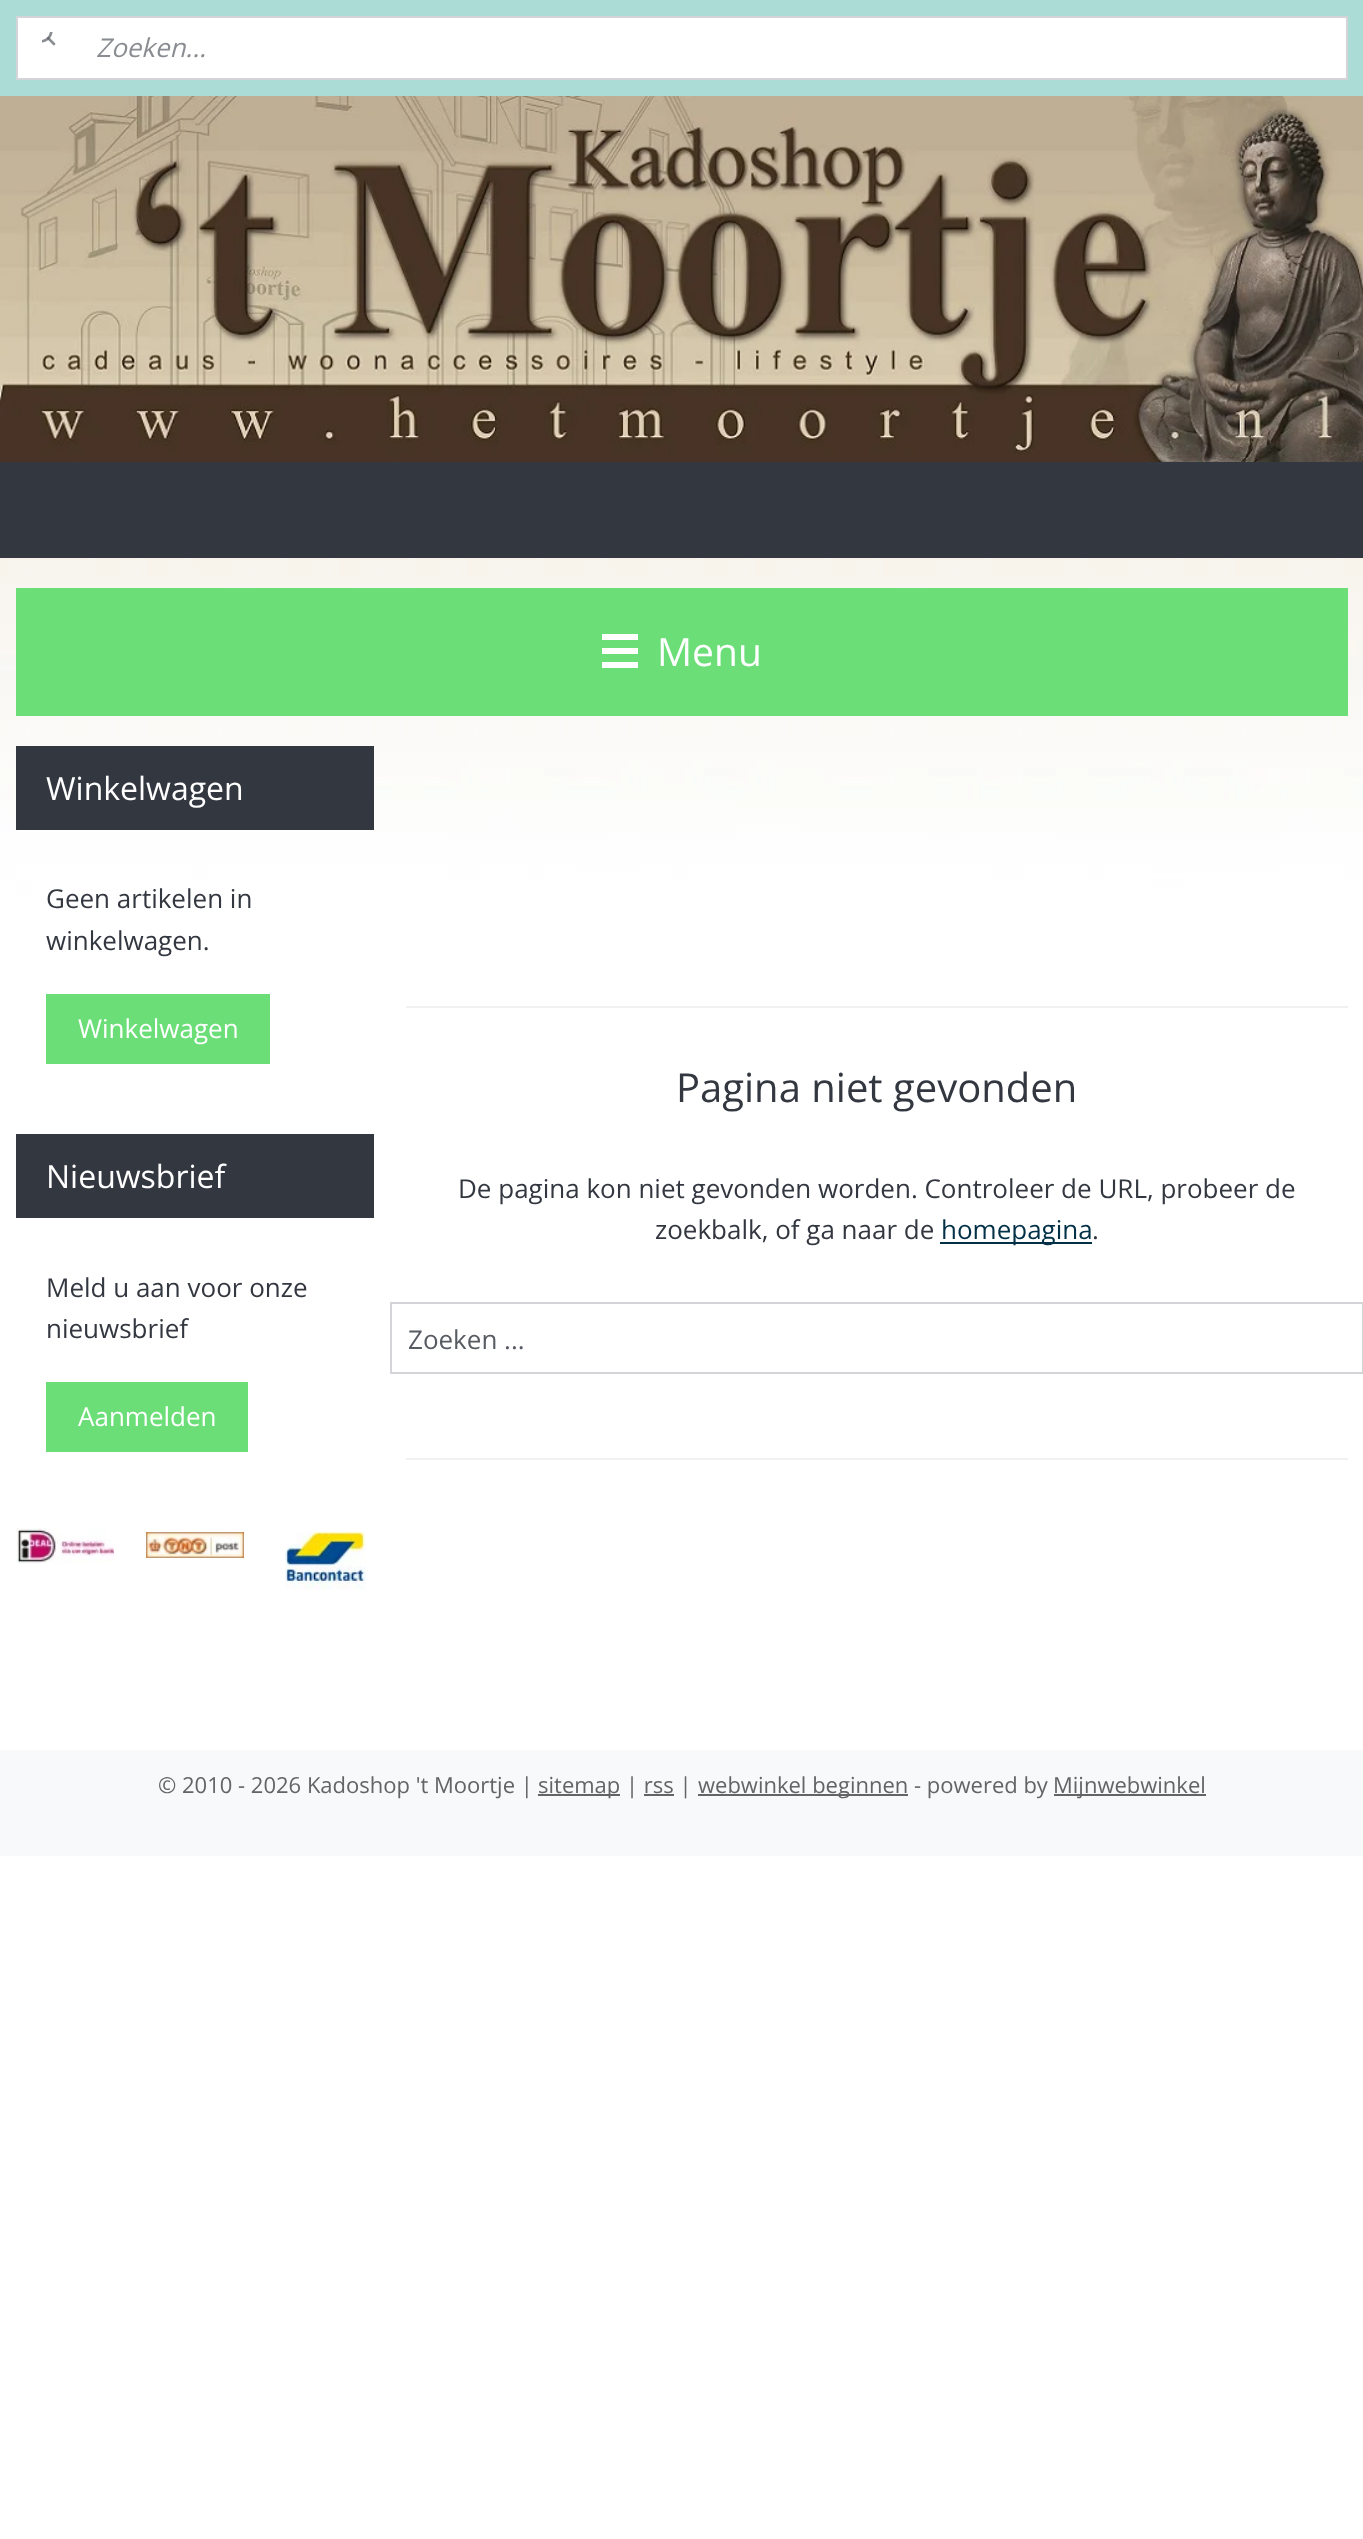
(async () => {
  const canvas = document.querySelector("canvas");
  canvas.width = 1363;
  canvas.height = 2539;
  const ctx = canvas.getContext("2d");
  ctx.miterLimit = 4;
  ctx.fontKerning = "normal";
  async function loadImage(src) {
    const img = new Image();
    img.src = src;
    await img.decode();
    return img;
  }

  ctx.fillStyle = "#ffffff";
  ctx.fillRect(0, 0, 1363, 2539);
  ctx.fillStyle = "#abdcd6";
  ctx.fillRect(0, 0, 1363, 96);
  ctx.fillStyle = "#ffffff";
  ctx.beginPath();
  ctx.rect(17, 17, 1330, 62);
  ctx.fill();
  ctx.strokeStyle = "#d3d5d9";
  ctx.lineWidth = 2;
  ctx.stroke();
  ctx.drawImage(await loadImage("img/1.png"), 42, 32, 14, 14);
  ctx.drawImage(await loadImage("img/2.png"), 0, 96, 1363, 366);
  ctx.fillStyle = "#333740";
  ctx.fillRect(0, 462, 1363, 96);
  ctx.drawImage(await loadImage("img/3.png"), 0, 558, 1363, 1981);
  for (const [x, y, w, h, color] of [
    [16, 588, 1332, 128, "#6bde78"],
    [602, 648, 36, 6, "#ffffff"],
    [602, 634, 36, 6, "#ffffff"],
    [602, 662, 36, 6, "#ffffff"],
    [19, 830, 355, 2, "#ffffff"],
    [16, 746, 358, 84, "#333740"],
    [46, 994, 224, 70, "#6bde78"],
    [16, 1134, 358, 84, "#333740"],
    [46, 1382, 202, 70, "#6bde78"],
  ]) {
    ctx.fillStyle = color;
    ctx.fillRect(x, y, w, h);
  }
  ctx.drawImage(await loadImage("img/4.png"), 16, 1528, 98, 36);
  ctx.drawImage(await loadImage("img/5.png"), 146, 1532, 98, 26);
  ctx.drawImage(await loadImage("img/6.png"), 285, 1531, 82, 59);
  for (const [x, y, w, h, color] of [
    [406, 1006, 942, 2, "#f2f1f1"],
    [406, 1458, 942, 2, "#f2f1f1"],
    [940, 1242, 152, 2, "#023047"],
  ]) {
    ctx.fillStyle = color;
    ctx.fillRect(x, y, w, h);
  }
  ctx.strokeRect(391, 1303, 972, 70);
  for (const [x, y, w, h, color] of [
    [0, 1750, 1363, 106, "#f8f9fb"],
    [538, 1794, 82, 2, "#636464"],
    [698, 1794, 210, 2, "#636464"],
    [1054, 1794, 152, 2, "#636464"],
    [644, 1794, 30, 2, "#636464"],
  ]) {
    ctx.fillStyle = color;
    ctx.fillRect(x, y, w, h);
  }
  ctx.font = "italic 26px Open Sans";
  ctx.fillStyle = "#898c91";
  ctx.fillText("Zoeken...", 96, 57);
  ctx.font = "39px Open Sans";
  ctx.fillStyle = "#ffffff";
  ctx.fillText("Menu", 657, 666);
  ctx.font = "32px Open Sans";
  ctx.fillText("Winkelwagen", 46, 800);
  ctx.font = "26px Open Sans";
  ctx.fillStyle = "#333740";
  ctx.fillText("Geen artikelen in", 46, 908);
  ctx.fillText("winkelwagen.", 46, 950);
  ctx.fillStyle = "#ffffff";
  ctx.fillText("Winkelwagen", 78, 1038);
  ctx.font = "32px Open Sans";
  ctx.fillText("Nieuwsbrief", 46, 1188);
  ctx.font = "26px Open Sans";
  ctx.fillStyle = "#333740";
  ctx.fillText("Meld u aan voor onze", 46, 1297);
  ctx.fillText("nieuwsbrief", 46, 1338);
  ctx.fillStyle = "#ffffff";
  ctx.fillText("Aanmelden", 78, 1426);
  ctx.font = "40px Open Sans";
  ctx.fillStyle = "#333740";
  ctx.fillText("Pagina niet gevonden", 676, 1102);
  ctx.font = "26px Open Sans";
  ctx.fillText("De pagina kon niet gevonden worden. Controleer de URL, probeer de", 458, 1198);
  ctx.fillText("zoekbalk, of ga naar de", 655, 1239);
  ctx.fillStyle = "#023047";
  ctx.fillText("homepagina", 941, 1239);
  ctx.fillStyle = "#333740";
  ctx.fillText(".", 1092, 1239);
  ctx.fillStyle = "#575b62";
  ctx.fillText("Zoeken ...", 408, 1349);
  ctx.font = "22px Open Sans";
  ctx.fillStyle = "#636464";
  for (const [text, x, y] of [
    ["© 2010 - 2026 Kadoshop 't Moortje |", 158, 1793],
    ["sitemap", 538, 1793],
    ["| rss |", 626, 1793],
    ["webwinkel beginnen", 698, 1793],
    ["- powered by", 914, 1793],
    ["Mijnwebwinkel", 1053, 1793],
  ]) {
    ctx.fillText(text, x, y);
  }
})();
